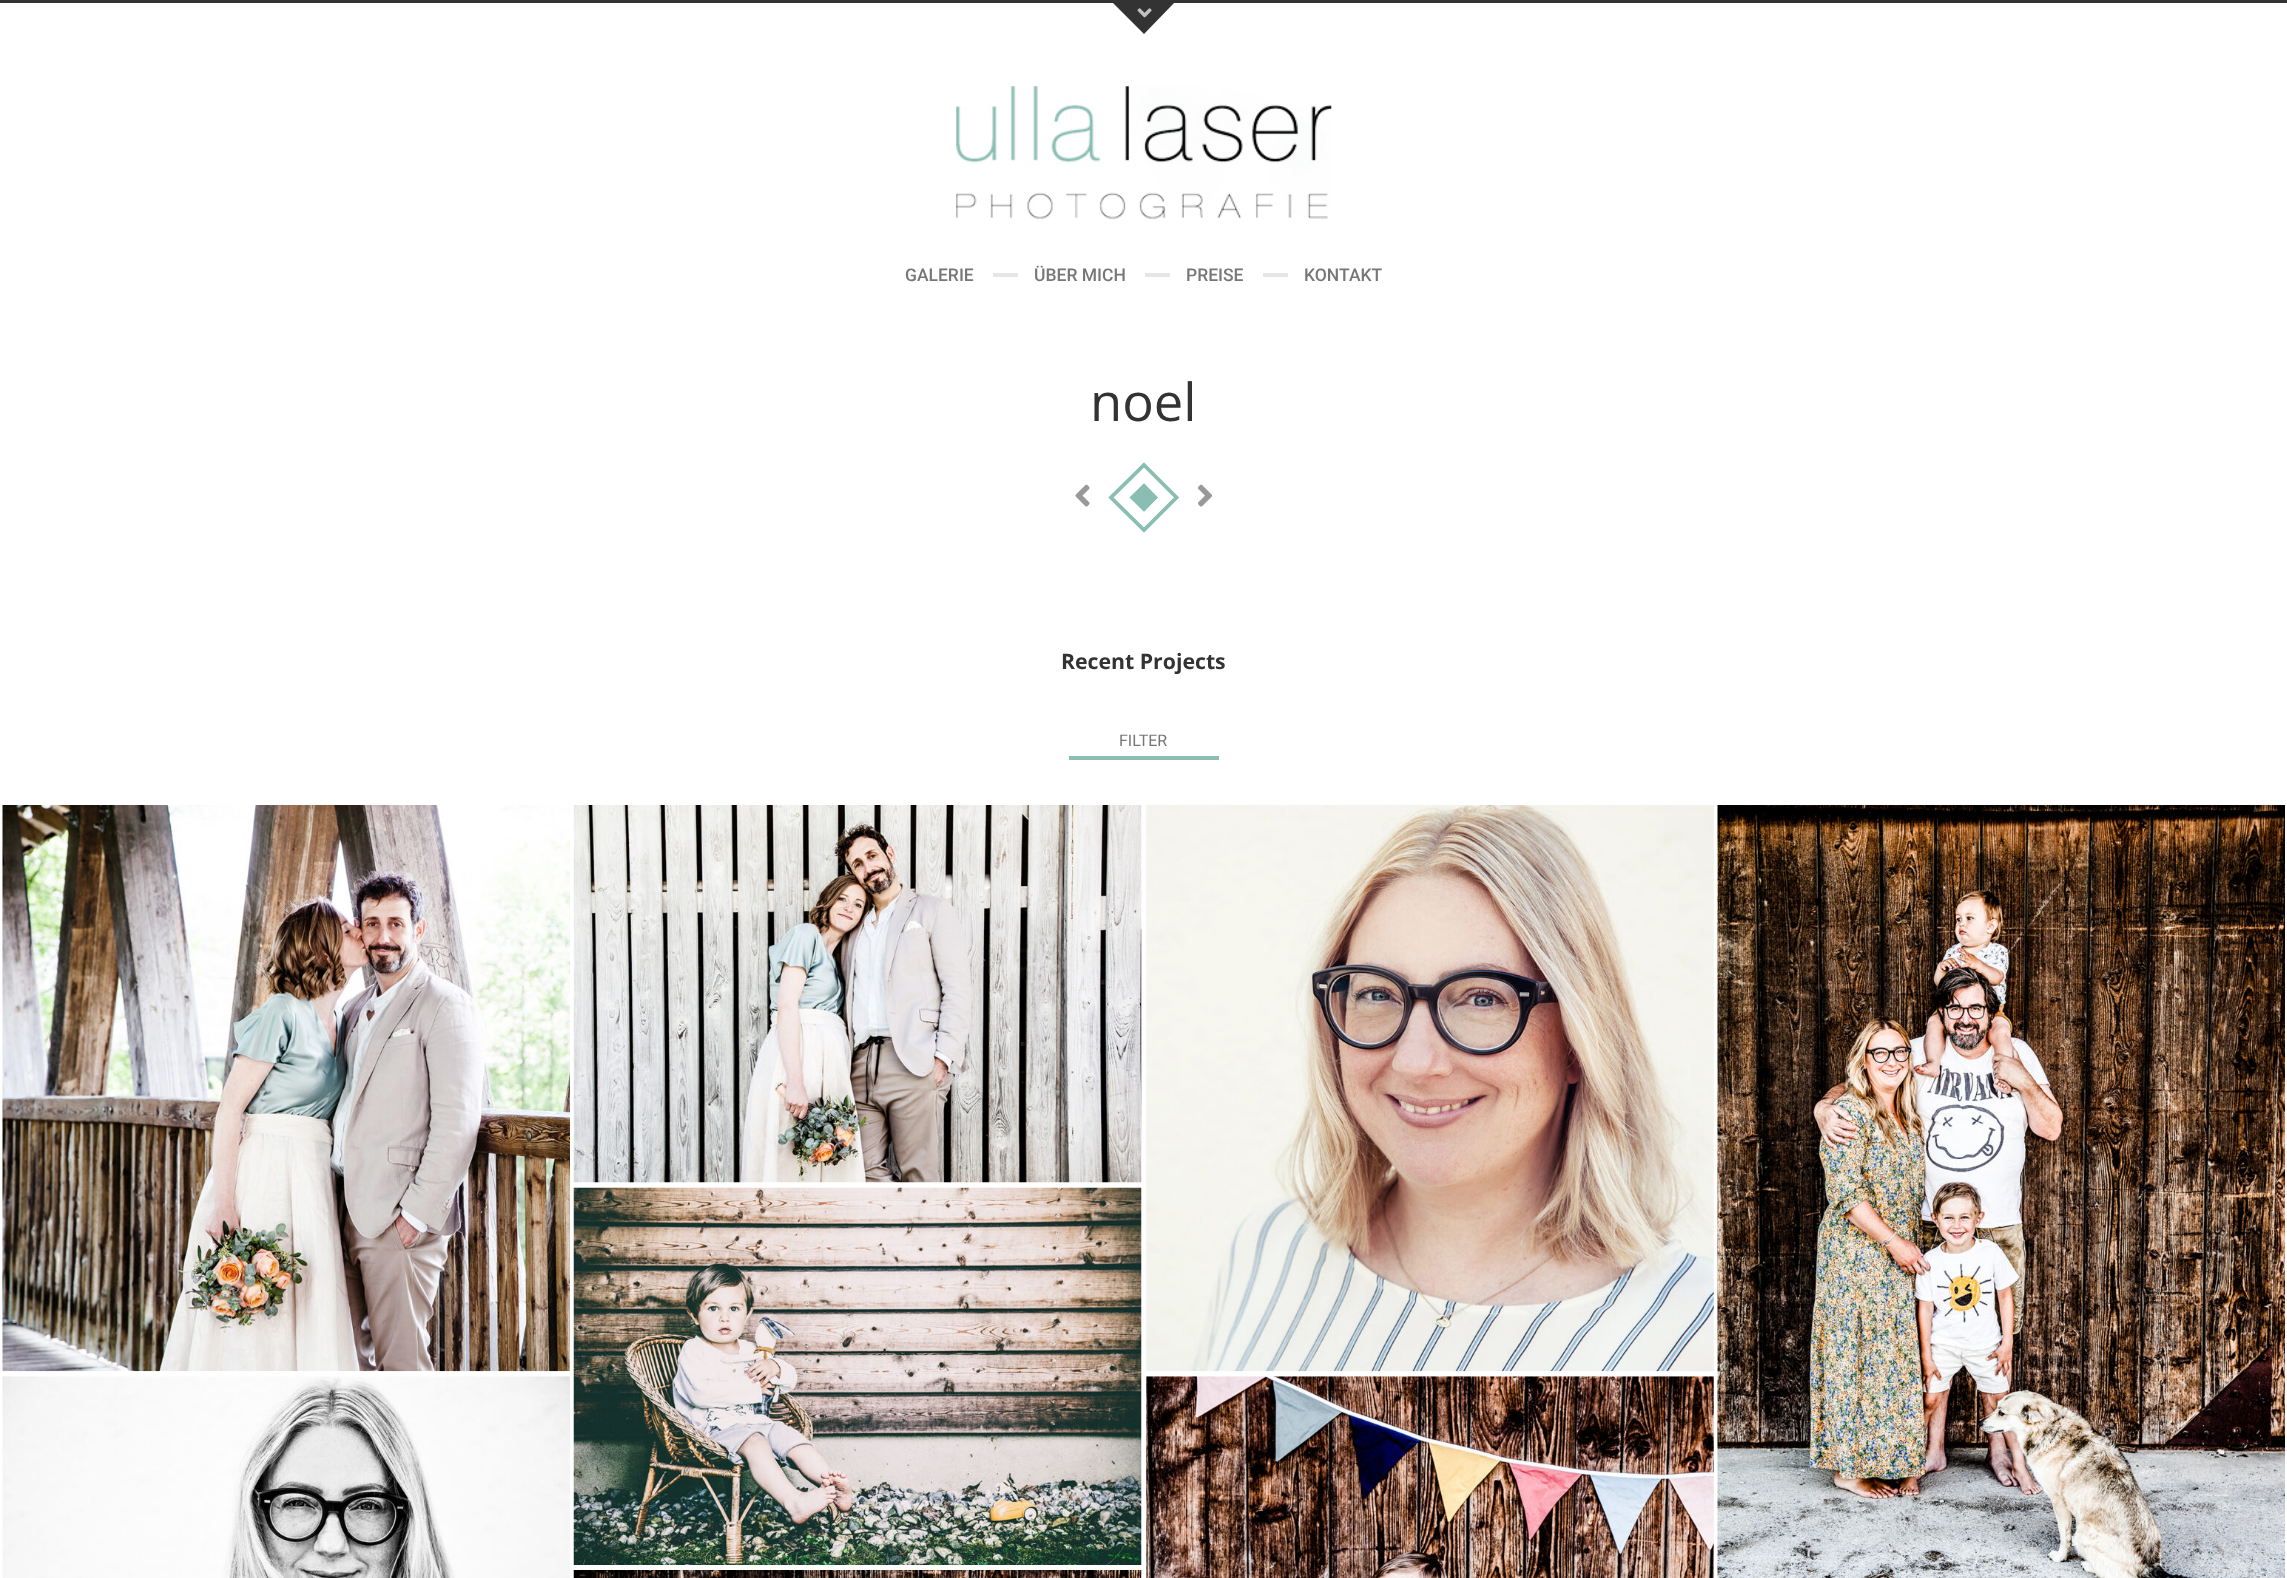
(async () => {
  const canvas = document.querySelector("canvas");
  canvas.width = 2287;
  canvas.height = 1578;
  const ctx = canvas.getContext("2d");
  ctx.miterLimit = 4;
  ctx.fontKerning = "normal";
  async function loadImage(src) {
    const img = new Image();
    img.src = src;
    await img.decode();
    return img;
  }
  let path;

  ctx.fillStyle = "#ffffff";
  ctx.fillRect(0, 0, 2287, 1578);
  ctx.fillStyle = "#333333";
  ctx.fillRect(0, 0, 2287, 3);
  path = new Path2D("M1112 2H1175L1144 34Z");
  ctx.fill(path);
  ctx.drawImage(await loadImage("img/1.png"), 1137, 8, 15, 10);
  ctx.drawImage(await loadImage("img/2.png"), 956, 86, 376, 133);
  for (const [x, y, w, h, color] of [
    [993, 273, 25, 4, "#e6e6e6"],
    [1145, 273, 25, 4, "#e6e6e6"],
    [1263, 273, 25, 4, "#e6e6e6"],
  ]) {
    ctx.fillStyle = color;
    ctx.fillRect(x, y, w, h);
  }
  ctx.drawImage(await loadImage("img/3.png"), 1075, 484, 15, 23);
  path = new Path2D("M1144 465L1176.5 497.5L1144 530L1111 497.5Z");
  ctx.strokeStyle = "#8abeb2";
  ctx.lineWidth = 3.8;
  ctx.stroke(path);
  ctx.fillStyle = "#8abeb2";
  path = new Path2D("M1144 483.5L1158 497.5L1144 511.5L1129.5 497.5Z");
  ctx.fill(path);
  path = new Path2D("M1144 486L1155 497.5L1144 509L1132.5 497.5Z");
  ctx.stroke(path);
  ctx.drawImage(await loadImage("img/4.png"), 1198, 484, 14, 23);
  ctx.fillRect(1069, 756, 150, 4);
  ctx.drawImage(await loadImage("img/5.png"), 2, 805, 568, 567);
  ctx.drawImage(await loadImage("img/6.png"), 573, 805, 569, 378);
  ctx.drawImage(await loadImage("img/7.png"), 1146, 805, 568, 567);
  ctx.drawImage(await loadImage("img/8.png"), 1717, 805, 568, 773);
  ctx.drawImage(await loadImage("img/9.png"), 2, 1376, 568, 202);
  ctx.drawImage(await loadImage("img/10.png"), 573, 1187, 569, 378);
  ctx.drawImage(await loadImage("img/11.png"), 1146, 1376, 568, 202);
  ctx.drawImage(await loadImage("img/12.png"), 573, 1570, 569, 8);
  ctx.font = "500 17.5px Roboto";
  ctx.fillStyle = "#777777";
  for (const [text, x, y] of [
    ["GALERIE", 905, 281],
    ["ÜBER MICH", 1034, 281],
    ["PREISE", 1186, 281],
    ["KONTAKT", 1304, 281],
  ]) {
    ctx.fillText(text, x, y);
  }
  ctx.font = "52.5px Open Sans";
  ctx.fillStyle = "#333333";
  ctx.fillText("noel", 1090, 421);
  ctx.font = "bold 21.25px Open Sans";
  ctx.fillText("Recent Projects", 1061, 669);
  ctx.font = "16px Roboto";
  ctx.fillStyle = "#777777";
  ctx.fillText("FILTER", 1119, 746);
})();
